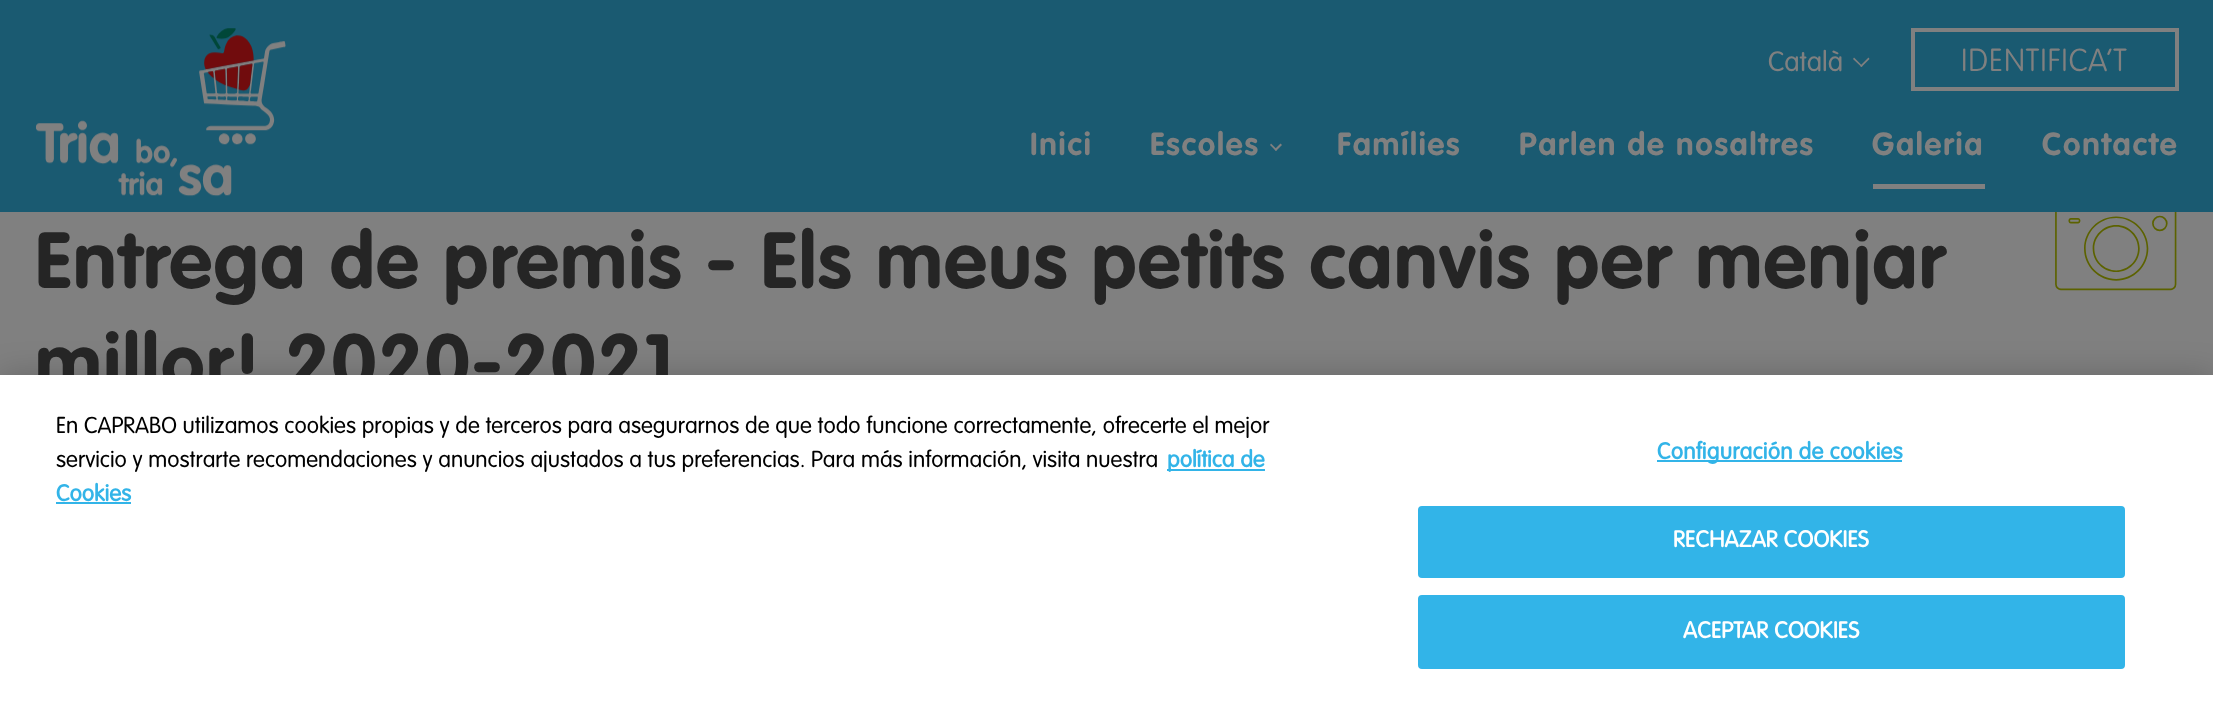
(async () => {
  const canvas = document.querySelector("canvas");
  canvas.width = 2213;
  canvas.height = 703;
  const ctx = canvas.getContext("2d");
  ctx.miterLimit = 4;
  ctx.fontKerning = "normal";
  async function loadImage(src) {
    const img = new Image();
    img.src = src;
    await img.decode();
    return img;
  }
  let path;

  ctx.fillStyle = "#808080";
  ctx.fillRect(0, 0, 2213, 703);
  ctx.fillStyle = "#1a5a71";
  ctx.fillRect(0, 0, 2213, 212);
  ctx.drawImage(await loadImage("img/1.png"), 35, 28, 251, 169);
  ctx.fillStyle = "#808080";
  path = new Path2D("M1868.5 57.5L1869.5 59L1861.5 67L1860 66Z");
  ctx.fill(path);
  path = new Path2D("M1854 57.5L1862.5 66L1861.5 67L1853 59Z");
  ctx.fill(path);
  ctx.strokeStyle = "#808080";
  ctx.lineWidth = 4;
  ctx.strokeRect(1913, 30, 264, 59);
  path = new Path2D("M1280.5 143.5L1282 145L1276 151L1274.5 149.5Z");
  ctx.fill(path);
  path = new Path2D("M1271 143.5L1277 149.5L1276 151L1270 145Z");
  ctx.fill(path);
  ctx.fillRect(1873, 184, 112, 5);
  ctx.drawImage(await loadImage("img/2.png"), 2055, 212, 122, 79);
  ctx.fillStyle = "rgba(0, 0, 0, 0.2)";
  ctx.filter = "blur(16px)";
  ctx.beginPath();
  ctx.rect(0, 375, 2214, 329);
  ctx.fill();
  ctx.filter = "none";
  ctx.font = "300 27.5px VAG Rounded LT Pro";
  ctx.fillStyle = "#808080";
  ctx.fillText("Català", 1768, 71);
  ctx.letterSpacing = "0.9px";
  ctx.font = "100 31.5px VAG Rounded LT Pro";
  ctx.fillText("IDENTIFICA’T", 1961, 71);
  ctx.letterSpacing = "1.75px";
  ctx.font = "bold 31.5px VAG Rounded LT Pro";
  for (const [text, x, y] of [
    ["Inici", 1030, 155],
    ["Escoles", 1150, 155],
    ["Famílies", 1337, 155],
    ["Parlen de nosaltres", 1519, 155],
    ["Galeria", 1872, 155],
    ["Contacte", 2042, 155],
  ]) {
    ctx.fillText(text, x, y);
  }
  ctx.font = "bold 78.4px VAG Rounded LT Pro";
  ctx.fillStyle = "#252525";
  ctx.fillText("Entrega de premis - Els meus petits canvis per menjar", 35, 288);
  ctx.fillText("millor! 2020-2021", 35, 390);
  ctx.fillStyle = "#ffffff";
  ctx.fillRect(0, 375, 2213, 328);
  ctx.letterSpacing = "0px";
  ctx.font = "300 22.75px VAG Rounded LT Pro";
  ctx.fillStyle = "#000000";
  ctx.fillText("En CAPRABO utilizamos cookies propias y de terceros para asegurarnos de que todo funcione correctamente, ofrecerte el mejor", 56, 433);
  ctx.fillText("servicio y mostrarte recomendaciones y anuncios ajustados a tus preferencias. Para más información, visita nuestra", 56, 467);
  ctx.fillStyle = "#32b4e8";
  ctx.fillRect(1167, 469, 98, 2);
  ctx.font = "bold 22.75px 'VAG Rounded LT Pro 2'";
  ctx.fillText("política de", 1167, 467);
  ctx.fillText("Cookies", 56, 501);
  ctx.fillRect(56, 502, 75, 2);
  ctx.fillRect(1657, 460, 245, 2);
  ctx.letterSpacing = "0.25px";
  ctx.fillText("Configuración de cookies", 1657, 459);
  ctx.beginPath();
  ctx.roundRect(1419, 507, 705, 70, 3);
  ctx.fill();
  ctx.strokeStyle = "#32b4e8";
  ctx.lineWidth = 2;
  ctx.stroke();
  ctx.fillStyle = "#ffffff";
  ctx.fillText("RECHAZAR COOKIES", 1673, 547);
  ctx.fillStyle = "#32b4e8";
  ctx.beginPath();
  ctx.roundRect(1419, 596, 705, 72, 3);
  ctx.fill();
  ctx.stroke();
  ctx.fillStyle = "#ffffff";
  ctx.fillText("ACEPTAR COOKIES", 1683, 638);
})();
